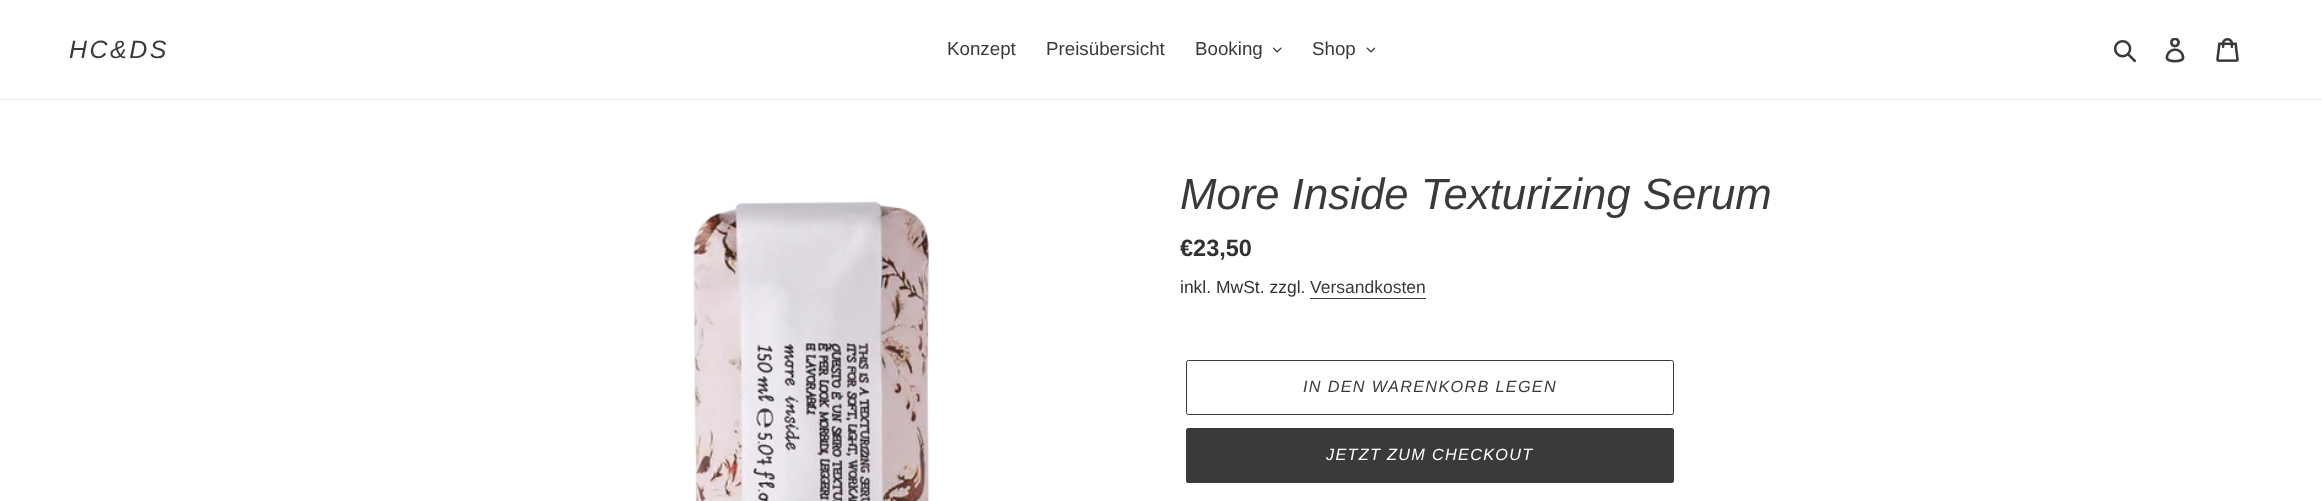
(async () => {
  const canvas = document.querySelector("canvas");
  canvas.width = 2322;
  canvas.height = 501;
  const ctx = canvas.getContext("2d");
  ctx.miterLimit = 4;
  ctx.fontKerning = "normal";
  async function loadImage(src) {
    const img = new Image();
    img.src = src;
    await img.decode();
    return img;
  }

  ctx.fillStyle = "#ffffff";
  ctx.fillRect(0, 0, 2322, 501);
  ctx.fillStyle = "#ebebeb";
  ctx.fillRect(0, 99, 2322, 1);
  ctx.drawImage(await loadImage("img/1.png"), 1273, 47, 9, 6);
  ctx.drawImage(await loadImage("img/2.png"), 1366, 47, 9, 6);
  ctx.drawImage(await loadImage("img/3.png"), 2113, 40, 23, 23);
  ctx.drawImage(await loadImage("img/4.png"), 2165, 38, 20, 25);
  ctx.drawImage(await loadImage("img/5.png"), 2216, 38, 23, 24);
  ctx.drawImage(await loadImage("img/6.png"), 693, 201, 237, 300);
  ctx.fillStyle = "#3a3a3a";
  ctx.fillRect(1310, 298, 116, 1);
  ctx.beginPath();
  ctx.roundRect(1186.5, 360.5, 487, 54, 2);
  ctx.strokeStyle = "#3a3a3a";
  ctx.stroke();
  ctx.beginPath();
  ctx.roundRect(1186, 428, 488, 55, 2.5);
  ctx.fill();
  ctx.letterSpacing = "2.5px";
  ctx.font = "italic 25px Liberation Sans";
  ctx.fillText("HC&DS", 69, 58);
  ctx.letterSpacing = "0px";
  ctx.font = "18.75px Liberation Sans";
  for (const [text, x, y] of [
    ["Konzept", 947, 55],
    ["Preisübersicht", 1046, 55],
    ["Booking", 1195, 55],
    ["Shop", 1312, 55],
  ]) {
    ctx.fillText(text, x, y);
  }
  ctx.font = "italic 43.75px Liberation Sans";
  ctx.fillText("More Inside Texturizing Serum", 1180, 209);
  ctx.font = "bold 23.5px Liberation Sans";
  ctx.fillStyle = "#333232";
  ctx.fillText("€23,50", 1180, 256);
  ctx.font = "17.5px Liberation Sans";
  ctx.fillText("inkl. MwSt. zzgl.", 1180, 293);
  ctx.fillStyle = "#3a3a3a";
  ctx.fillText("Versandkosten", 1310, 293);
  ctx.letterSpacing = "1.3px";
  ctx.font = "italic 16.25px Liberation Sans";
  ctx.fillText("IN DEN WARENKORB LEGEN", 1303, 392);
  ctx.fillStyle = "#ffffff";
  ctx.fillText("JETZT ZUM CHECKOUT", 1326, 460);
})();
